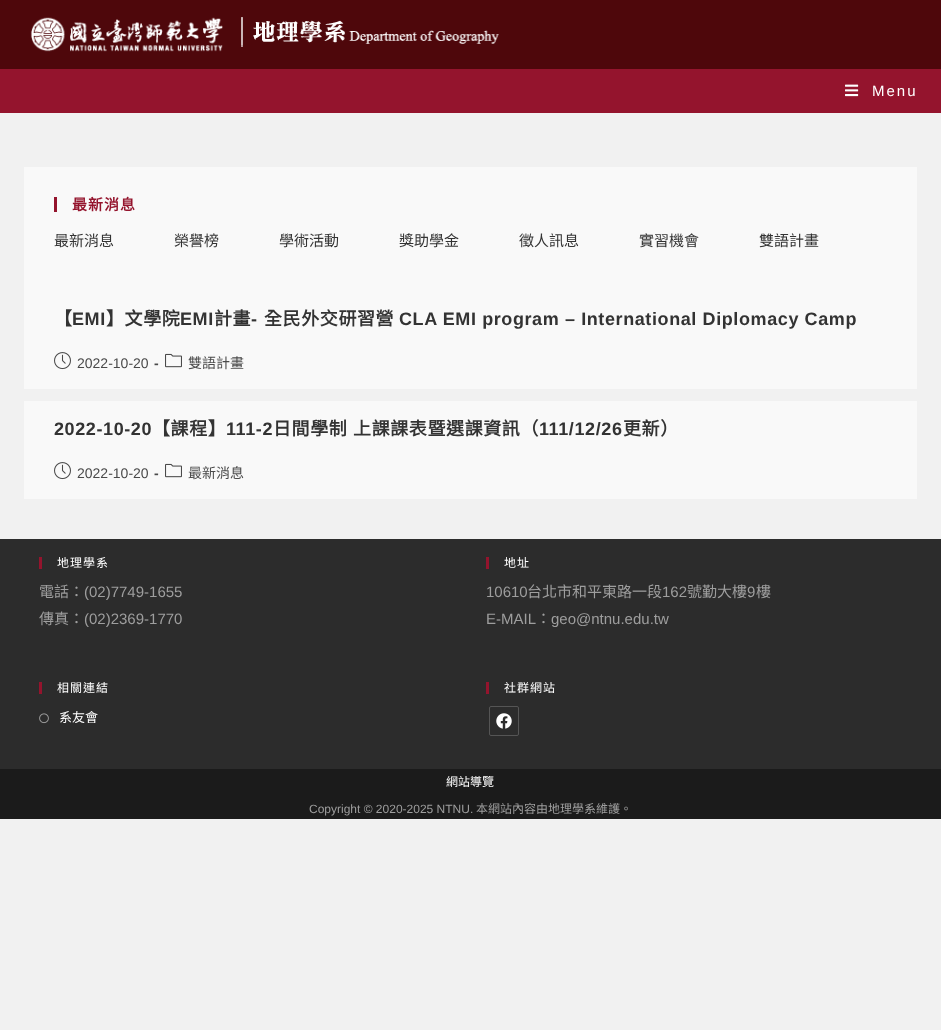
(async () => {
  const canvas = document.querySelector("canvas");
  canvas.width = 941;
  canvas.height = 1030;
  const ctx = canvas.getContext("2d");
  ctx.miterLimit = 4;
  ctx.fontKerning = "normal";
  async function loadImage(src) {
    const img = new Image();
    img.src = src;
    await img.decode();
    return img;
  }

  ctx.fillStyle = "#f1f1f1";
  ctx.fillRect(0, 0, 941, 1030);
  ctx.fillStyle = "#4e070b";
  ctx.fillRect(0, 0, 941, 69);
  ctx.drawImage(await loadImage("img/1.png"), 30, 17, 193, 35);
  ctx.drawImage(await loadImage("img/2.png"), 241, 17, 258, 30);
  ctx.fillStyle = "#94142d";
  ctx.fillRect(0, 69, 941, 44);
  ctx.drawImage(await loadImage("img/3.png"), 845, 84, 14, 13);
  ctx.fillStyle = "#f9f9f9";
  ctx.fillRect(24, 167, 893, 222);
  ctx.fillStyle = "#94142d";
  ctx.fillRect(54, 197, 3, 15);
  ctx.drawImage(await loadImage("img/4.png"), 54, 352, 17, 18);
  ctx.drawImage(await loadImage("img/5.png"), 165, 353, 17, 15);
  ctx.fillStyle = "#f9f9f9";
  ctx.fillRect(24, 401, 893, 98);
  ctx.drawImage(await loadImage("img/4.png"), 54, 462, 17, 18);
  ctx.drawImage(await loadImage("img/5.png"), 165, 463, 17, 15);
  for (const [x, y, w, h, color] of [
    [0, 539, 941, 230, "#2c2c2c"],
    [39, 557, 3, 12, "#94142d"],
    [486, 557, 3, 12, "#94142d"],
    [39, 682, 3, 12, "#94142d"],
  ]) {
    ctx.fillStyle = color;
    ctx.fillRect(x, y, w, h);
  }
  ctx.drawImage(await loadImage("img/6.png"), 39, 713, 10, 11);
  ctx.fillRect(486, 682, 3, 12);
  ctx.beginPath();
  ctx.roundRect(489.5, 706.5, 29, 29, 1.5);
  ctx.strokeStyle = "#555555";
  ctx.stroke();
  ctx.drawImage(await loadImage("img/7.png"), 496, 713, 16, 16);
  ctx.fillStyle = "#1b1b1b";
  ctx.fillRect(0, 769, 941, 50);
  ctx.letterSpacing = "2px";
  ctx.font = "15px Liberation Sans";
  ctx.fillStyle = "#ffffff";
  ctx.fillText("Menu", 872, 96);
  ctx.letterSpacing = "1px";
  ctx.font = "bold 15px Noto Sans CJK TC";
  ctx.fillStyle = "#94142d";
  ctx.fillText("最新消息", 72, 210);
  ctx.letterSpacing = "0px";
  ctx.font = "15px Noto Sans CJK TC";
  ctx.fillStyle = "#333333";
  for (const [text, x, y] of [
    ["最新消息", 54, 246],
    ["榮譽榜", 174, 246],
    ["學術活動", 279, 246],
    ["獎助學金", 399, 246],
    ["徵人訊息", 519, 246],
    ["實習機會", 639, 246],
    ["雙語計畫", 759, 246],
  ]) {
    ctx.fillText(text, x, y);
  }
  ctx.letterSpacing = "0.6px";
  ctx.font = "bold 18px Noto Sans CJK TC";
  ctx.fillText("【", 54, 325);
  ctx.font = "bold 18px Liberation Sans";
  ctx.fillText("EMI", 72, 325);
  ctx.font = "bold 18px Noto Sans CJK TC";
  ctx.fillText("】文學院", 106, 325);
  ctx.font = "bold 18px Liberation Sans";
  ctx.fillText("EMI", 180, 325);
  ctx.font = "bold 18px Noto Sans CJK TC";
  ctx.fillText("計畫", 214, 325);
  ctx.font = "bold 18px Liberation Sans";
  ctx.fillText("-", 251, 325);
  ctx.font = "bold 18px Noto Sans CJK TC";
  ctx.fillText("全民外交研習營", 264, 325);
  ctx.font = "bold 18px Liberation Sans";
  ctx.fillText("CLA EMI program – International Diplomacy Camp", 399, 325);
  ctx.letterSpacing = "0px";
  ctx.font = "14px Liberation Sans";
  ctx.fillStyle = "#4a4a4a";
  ctx.fillText("2022-10-20", 77, 368);
  ctx.font = "bold 14px Liberation Sans";
  ctx.fillText("-", 154, 368);
  ctx.font = "14px Noto Sans CJK TC";
  ctx.fillText("雙語計畫", 188, 368);
  ctx.letterSpacing = "0.6px";
  ctx.font = "bold 18px Liberation Sans";
  ctx.fillStyle = "#333333";
  ctx.fillText("2022-10-20", 54, 435);
  ctx.font = "bold 18px Noto Sans CJK TC";
  ctx.fillText("【課程】", 152, 435);
  ctx.font = "bold 18px Liberation Sans";
  ctx.fillText("111-2", 226, 435);
  ctx.wordSpacing = "1px";
  ctx.font = "bold 18px Noto Sans CJK TC";
  ctx.fillText("日間學制 上課課表暨選課資訊（", 273, 435);
  ctx.wordSpacing = "0px";
  ctx.font = "bold 18px Liberation Sans";
  ctx.fillText("111/12/26", 539, 435);
  ctx.font = "bold 18px Noto Sans CJK TC";
  ctx.fillText("更新）", 623, 435);
  ctx.letterSpacing = "0px";
  ctx.font = "14px Liberation Sans";
  ctx.fillStyle = "#4a4a4a";
  ctx.fillText("2022-10-20", 77, 478);
  ctx.font = "bold 14px Liberation Sans";
  ctx.fillText("-", 154, 478);
  ctx.font = "14px Noto Sans CJK TC";
  ctx.fillText("最新消息", 188, 478);
  ctx.letterSpacing = "1px";
  ctx.font = "12px Noto Sans CJK TC";
  ctx.fillStyle = "#ffffff";
  ctx.fillText("地理學系", 57, 567);
  ctx.letterSpacing = "0px";
  ctx.font = "15px Noto Sans CJK TC";
  ctx.fillStyle = "#9e9e9e";
  ctx.fillText("電話：", 39, 597);
  ctx.font = "15px Liberation Sans";
  ctx.fillText("(02)7749-1655", 84, 597);
  ctx.font = "15px Noto Sans CJK TC";
  ctx.fillText("傳真：", 39, 624);
  ctx.font = "15px Liberation Sans";
  ctx.fillText("(02)2369-1770", 84, 624);
  ctx.letterSpacing = "1px";
  ctx.font = "12px Noto Sans CJK TC";
  ctx.fillStyle = "#ffffff";
  ctx.fillText("地址", 504, 567);
  ctx.letterSpacing = "0px";
  ctx.font = "15px Liberation Sans";
  ctx.fillStyle = "#9e9e9e";
  ctx.fillText("10610", 486, 597);
  ctx.font = "15px Noto Sans CJK TC";
  ctx.fillText("台北市和平東路一段", 527, 597);
  ctx.font = "15px Liberation Sans";
  ctx.fillText("162", 662, 597);
  ctx.font = "15px Noto Sans CJK TC";
  ctx.fillText("號勤大樓", 687, 597);
  ctx.font = "15px Liberation Sans";
  ctx.fillText("9", 747, 597);
  ctx.font = "15px Noto Sans CJK TC";
  ctx.fillText("樓", 756, 597);
  ctx.font = "15px Liberation Sans";
  ctx.fillText("E-MAIL", 486, 624);
  ctx.font = "15px Noto Sans CJK TC";
  ctx.fillText("：", 536, 624);
  ctx.font = "15px Liberation Sans";
  ctx.fillText("geo@ntnu.edu.tw", 551, 624);
  ctx.letterSpacing = "1px";
  ctx.font = "12px Noto Sans CJK TC";
  ctx.fillStyle = "#ffffff";
  ctx.fillText("相關連結", 57, 692);
  ctx.letterSpacing = "0px";
  ctx.font = "13px Noto Sans CJK TC";
  ctx.fillText("系友會", 59, 722);
  ctx.letterSpacing = "1px";
  ctx.font = "12px Noto Sans CJK TC";
  ctx.fillText("社群網站", 504, 692);
  ctx.letterSpacing = "0px";
  ctx.fillText("網站導覽", 446, 786);
  ctx.font = "12px Liberation Sans";
  ctx.fillStyle = "#9e9e9e";
  ctx.fillText("Copyright © 2020-2025 NTNU.", 309, 813);
  ctx.font = "12px Noto Sans CJK TC";
  ctx.fillText("本網站內容由地理學系維護。", 476, 813);
})();
